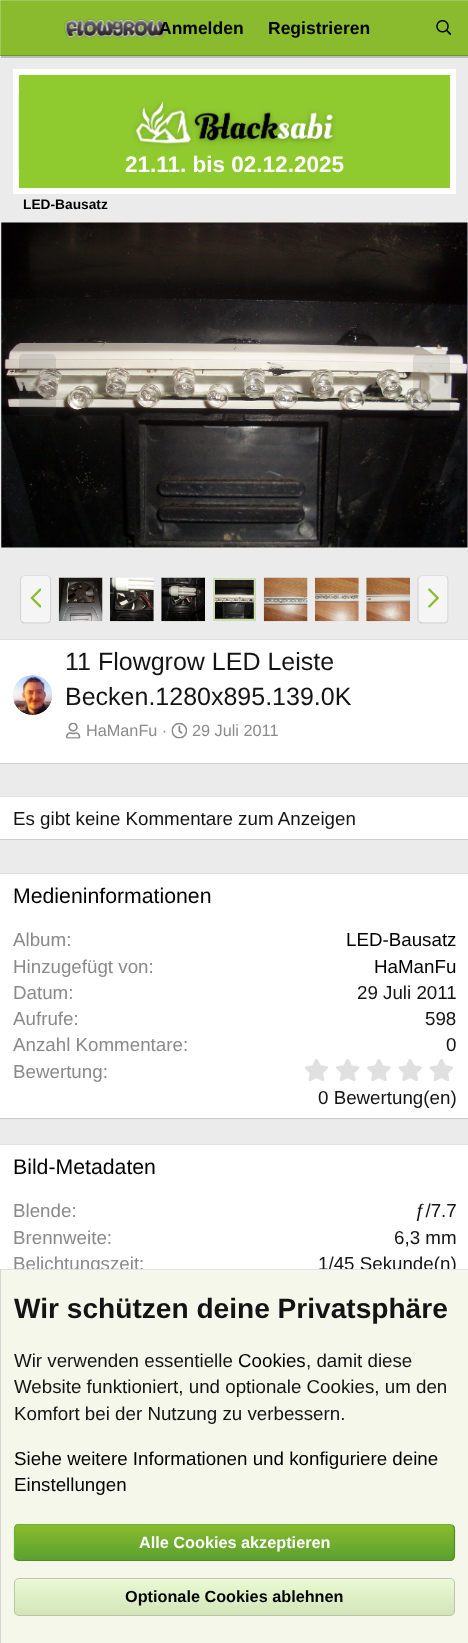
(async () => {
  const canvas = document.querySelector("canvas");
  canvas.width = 468;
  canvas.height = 1643;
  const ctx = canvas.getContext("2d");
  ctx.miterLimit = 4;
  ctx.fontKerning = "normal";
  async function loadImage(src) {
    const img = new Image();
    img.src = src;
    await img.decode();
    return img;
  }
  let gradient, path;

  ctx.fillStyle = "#ebebeb";
  ctx.fillRect(0, 0, 468, 1643);
  ctx.fillStyle = "rgba(0, 0, 0, 0.2)";
  ctx.filter = "blur(0.5px)";
  ctx.beginPath();
  ctx.rect(1, 1, 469, 57);
  ctx.fill();
  ctx.filter = "none";
  for (const [x, y, w, h, color] of [
    [1, 1, 467, 54, "#8abb2f"],
    [0, 55, 468, 1, "#6e9626"],
    [0, 0, 468, 1, "#a1c959"],
    [0, 0, 1, 56, "#a1c959"],
    [0, 55, 1, 1, "#81a147"],
    [0, 0, 1, 1, "#b4d47a"],
  ]) {
    ctx.fillStyle = color;
    ctx.fillRect(x, y, w, h);
  }
  ctx.drawImage(await loadImage("img/1.png"), 64, 19, 102, 20);
  ctx.drawImage(await loadImage("img/2.png"), 436, 20, 15, 15);
  ctx.fillStyle = "#ffffff";
  ctx.fillRect(13, 69, 443, 125);
  ctx.fillStyle = "#8fcb2f";
  ctx.fillRect(19, 75, 431, 113);
  ctx.drawImage(await loadImage("img/3.png"), 18, 93, 318, 76);
  ctx.drawImage(await loadImage("img/4.png"), 1, 222, 467, 326);
  ctx.fillStyle = "rgba(79, 79, 79, 0.14)";
  ctx.beginPath();
  ctx.roundRect(19, 354, 37, 62, 5);
  ctx.fill();
  ctx.drawImage(await loadImage("img/5.png"), 29, 369, 17, 29);
  ctx.beginPath();
  ctx.roundRect(413, 354, 37, 62, 5);
  ctx.fill();
  ctx.drawImage(await loadImage("img/6.png"), 423, 369, 17, 29);
  ctx.fillStyle = "#f5f5f5";
  ctx.beginPath();
  ctx.roundRect(20, 575, 31, 49, 5);
  ctx.fill();
  path = new Path2D("M22 577C22.5 576 24 575.5 25 575.5H46C47.5 575.5 48.5 576 49.5 577");
  ctx.strokeStyle = "#e0e0e0";
  ctx.lineWidth = 1.2;
  ctx.stroke(path);
  path = new Path2D("M49.5 577C50 577.5 50.5 579 50.5 580V619C50.5 620 50 621 49.5 622");
  ctx.strokeStyle = "#d6d6d6";
  ctx.stroke(path);
  path = new Path2D("M49.5 622C48.5 622.5 47.5 623 46 623H25C24 623 22.5 622.5 22 622");
  ctx.strokeStyle = "#cccccc";
  ctx.stroke(path);
  path = new Path2D("M22 622C21 621 20.5 620 20.5 619V580C20.5 579 21 577.5 22 577");
  ctx.strokeStyle = "#d6d6d6";
  ctx.stroke(path);
  ctx.drawImage(await loadImage("img/7.png"), 30, 588, 11, 20);
  ctx.drawImage(await loadImage("img/8.png"), 58, 577, 45, 45);
  ctx.drawImage(await loadImage("img/9.png"), 110, 577, 44, 45);
  ctx.drawImage(await loadImage("img/10.png"), 161, 577, 44, 45);
  ctx.strokeStyle = "#c9ddae";
  ctx.lineWidth = 3;
  ctx.strokeRect(214.5, 579.5, 40, 40);
  ctx.drawImage(await loadImage("img/11.png"), 215, 580, 39, 39);
  ctx.drawImage(await loadImage("img/12.png"), 263, 577, 45, 45);
  ctx.drawImage(await loadImage("img/13.png"), 315, 577, 44, 45);
  ctx.drawImage(await loadImage("img/14.png"), 366, 577, 44, 45);
  ctx.beginPath();
  ctx.roundRect(418, 575, 31, 49, 5);
  ctx.fill();
  path = new Path2D("M419.5 577C420 576 421.5 575.5 422.5 575.5H444C445 575.5 446 576 447 577");
  ctx.strokeStyle = "#e0e0e0";
  ctx.lineWidth = 1.2;
  ctx.stroke(path);
  path = new Path2D("M447 577C447.5 577.5 448 579 448 580V619C448 620 447.5 621 447 622");
  ctx.strokeStyle = "#d6d6d6";
  ctx.stroke(path);
  path = new Path2D("M447 622C446 622.5 445 623 444 623H422.5C421.5 623 420 622.5 419.5 622");
  ctx.strokeStyle = "#cccccc";
  ctx.stroke(path);
  path = new Path2D("M419.5 622C418.5 621 418 620 418 619V580C418 579 418.5 577.5 419.5 577");
  ctx.strokeStyle = "#d6d6d6";
  ctx.stroke(path);
  ctx.drawImage(await loadImage("img/15.png"), 428, 588, 11, 20);
  for (const [x, y, w, h, color] of [
    [0, 640, 468, 123, "#ffffff"],
    [0, 639, 468, 1, "#e0e0e0"],
    [0, 763, 468, 1, "#cccccc"],
  ]) {
    ctx.fillStyle = color;
    ctx.fillRect(x, y, w, h);
  }
  ctx.drawImage(await loadImage("img/16.png"), 13, 675, 39, 40);
  ctx.drawImage(await loadImage("img/17.png"), 66, 722, 15, 17);
  ctx.drawImage(await loadImage("img/18.png"), 171, 722, 17, 17);
  for (const [x, y, w, h, color] of [
    [0, 797, 468, 42, "#ffffff"],
    [0, 796, 468, 1, "#e0e0e0"],
    [0, 839, 468, 1, "#cccccc"],
    [0, 874, 468, 244, "#ffffff"],
    [0, 873, 468, 1, "#e0e0e0"],
    [0, 1118, 468, 1, "#cccccc"],
  ]) {
    ctx.fillStyle = color;
    ctx.fillRect(x, y, w, h);
  }
  ctx.drawImage(await loadImage("img/19.png"), 304, 1059, 24, 22);
  ctx.drawImage(await loadImage("img/20.png"), 336, 1059, 24, 22);
  ctx.drawImage(await loadImage("img/21.png"), 367, 1059, 24, 22);
  ctx.drawImage(await loadImage("img/22.png"), 398, 1059, 24, 22);
  ctx.drawImage(await loadImage("img/19.png"), 429, 1059, 24, 22);
  ctx.fillStyle = "#ffffff";
  ctx.fillRect(0, 1145, 468, 124);
  ctx.fillStyle = "#e0e0e0";
  ctx.fillRect(0, 1144, 468, 1);
  ctx.font = "bold 17.5px Liberation Sans";
  ctx.fillStyle = "#000000";
  ctx.fillText("Anmelden", 159, 34);
  ctx.fillText("Registrieren", 268, 34);
  ctx.font = "bold 22.5px Liberation Sans";
  ctx.fillStyle = "#ffffff";
  ctx.fillText("21.11. bis 02.12.2025", 125, 172);
  ctx.font = "bold 13.75px Liberation Sans";
  ctx.fillStyle = "#000000";
  ctx.fillText("LED-Bausatz", 23, 209);
  ctx.font = "25px Liberation Sans";
  ctx.fillStyle = "#141414";
  ctx.fillText("11 Flowgrow LED Leiste", 65, 670);
  ctx.fillText("Becken.1280x895.139.0K", 65, 705);
  ctx.font = "16.25px Liberation Sans";
  ctx.fillStyle = "#8a8a8a";
  ctx.fillText("HaManFu ·", 86, 736);
  ctx.fillText("29 Juli 2011", 192, 736);
  ctx.font = "18.75px Liberation Sans";
  ctx.fillStyle = "#141414";
  ctx.fillText("Es gibt keine Kommentare zum Anzeigen", 13, 825);
  ctx.font = "21.25px Liberation Sans";
  ctx.fillStyle = "#000000";
  ctx.fillText("Medieninformationen", 13, 903);
  ctx.font = "18.75px Liberation Sans";
  ctx.fillStyle = "#8a8a8a";
  ctx.fillText("Album:", 13, 946);
  ctx.fillStyle = "#000000";
  ctx.fillText("LED-Bausatz", 346, 946);
  ctx.fillStyle = "#8a8a8a";
  ctx.fillText("Hinzugefügt von:", 13, 973);
  ctx.fillStyle = "#000000";
  ctx.fillText("HaManFu", 374, 973);
  ctx.fillStyle = "#8a8a8a";
  ctx.fillText("Datum:", 13, 999);
  ctx.fillStyle = "#141414";
  ctx.fillText("29 Juli 2011", 357, 999);
  ctx.fillStyle = "#8a8a8a";
  ctx.fillText("Aufrufe:", 13, 1025);
  ctx.fillStyle = "#141414";
  ctx.fillText("598", 425, 1025);
  ctx.fillStyle = "#8a8a8a";
  ctx.fillText("Anzahl Kommentare:", 13, 1051);
  ctx.fillStyle = "#141414";
  ctx.fillText("0", 446, 1051);
  ctx.fillStyle = "#8a8a8a";
  ctx.fillText("Bewertung:", 13, 1078);
  ctx.fillStyle = "#141414";
  ctx.fillText("0 Bewertung(en)", 318, 1104);
  ctx.font = "21.25px Liberation Sans";
  ctx.fillStyle = "#000000";
  ctx.fillText("Bild-Metadaten", 13, 1174);
  ctx.font = "18.75px Liberation Sans";
  ctx.fillStyle = "#8a8a8a";
  ctx.fillText("Blende:", 13, 1217);
  ctx.fillStyle = "#141414";
  ctx.fillText("ƒ/7.7", 415, 1217);
  ctx.fillStyle = "#8a8a8a";
  ctx.fillText("Brennweite:", 13, 1244);
  ctx.fillStyle = "#141414";
  ctx.fillText("6,3 mm", 394, 1244);
  ctx.fillStyle = "#8a8a8a";
  ctx.fillText("Belichtungszeit:", 13, 1270);
  ctx.fillStyle = "#141414";
  ctx.fillText("1/45 Sekunde(n)", 318, 1270);
  for (const [x, y, w, h, color] of [
    [1, 1270, 467, 373, "#f5f7ea"],
    [0, 1269, 468, 1, "#e0e0e0"],
    [0, 1269, 1, 374, "#d6d6d6"],
  ]) {
    ctx.fillStyle = color;
    ctx.fillRect(x, y, w, h);
  }
  ctx.font = "bold 28.1px Liberation Sans";
  ctx.fillStyle = "#141414";
  ctx.fillText("Wir schützen deine Privatsphäre", 14, 1318);
  ctx.font = "18.75px Liberation Sans";
  ctx.fillText("Wir verwenden essentielle", 14, 1367);
  ctx.fillStyle = "#000000";
  ctx.fillText("Cookies", 238, 1367);
  ctx.fillStyle = "#141414";
  for (const [text, x, y] of [
    [", damit diese", 306, 1367],
    ["Website funktioniert, und optionale Cookies, um den", 14, 1393],
    ["Komfort bei der Nutzung zu verbessern.", 14, 1420],
  ]) {
    ctx.fillText(text, x, y);
  }
  ctx.fillStyle = "#000000";
  ctx.fillText("Siehe weitere Informationen und konfiguriere deine", 14, 1465);
  ctx.fillText("Einstellungen", 14, 1491);
  ctx.save();
  ctx.beginPath();
  ctx.roundRect(14, 1524, 441, 37, 5);
  ctx.clip();
  gradient = ctx.createLinearGradient(234, 1525, 234, 1560);
  gradient.addColorStop(0, "#8abb2f");
  gradient.addColorStop(1, "#5aa02e");
  ctx.fillStyle = gradient;
  ctx.fillRect(14, 1525, 441, 35);
  ctx.restore();
  path = new Path2D("M453 1525.5C455 1527.5 454.5 1531 454.5 1533.5V1551.5C454.5 1554.5 455 1559 451.5 1560.5H18.5L15.5 1559.5");
  ctx.strokeStyle = "#4f8c28";
  ctx.stroke(path);
  path = new Path2D("M15.5 1559.5C13.5 1557.5 14.5 1554 14.5 1551.5V1533.5C14.5 1530.5 13.5 1526 17 1524.5H450.5L453 1525.5");
  ctx.strokeStyle = "#65b434";
  ctx.stroke(path);
  ctx.font = "bold 16.25px Liberation Sans";
  ctx.fillStyle = "#ffffff";
  ctx.fillText("Alle Cookies akzeptieren", 139, 1548);
  ctx.save();
  ctx.beginPath();
  ctx.roundRect(14, 1578, 441, 38, 5);
  ctx.clip();
  gradient = ctx.createLinearGradient(234, 1579, 234, 1615);
  gradient.addColorStop(0, "#eafad4");
  gradient.addColorStop(1, "#d2e5b8");
  ctx.fillStyle = gradient;
  ctx.fillRect(14, 1579, 441, 36);
  ctx.restore();
  ctx.fillStyle = "#f4fce9";
  path = new Path2D("M19 1580H450C452 1580 454 1582 454 1584C454 1581 453 1579 450 1579H19L17 1580L16 1581L15 1584C15 1582 17 1580 19 1580Z");
  ctx.fill(path);
  ctx.beginPath();
  ctx.roundRect(14.5, 1578.5, 440, 37, 4.5);
  ctx.strokeStyle = "#bac6a9";
  ctx.lineWidth = 1;
  ctx.stroke();
  ctx.fillStyle = "#000000";
  ctx.fillText("Optionale Cookies ablehnen", 125, 1602);
})();
